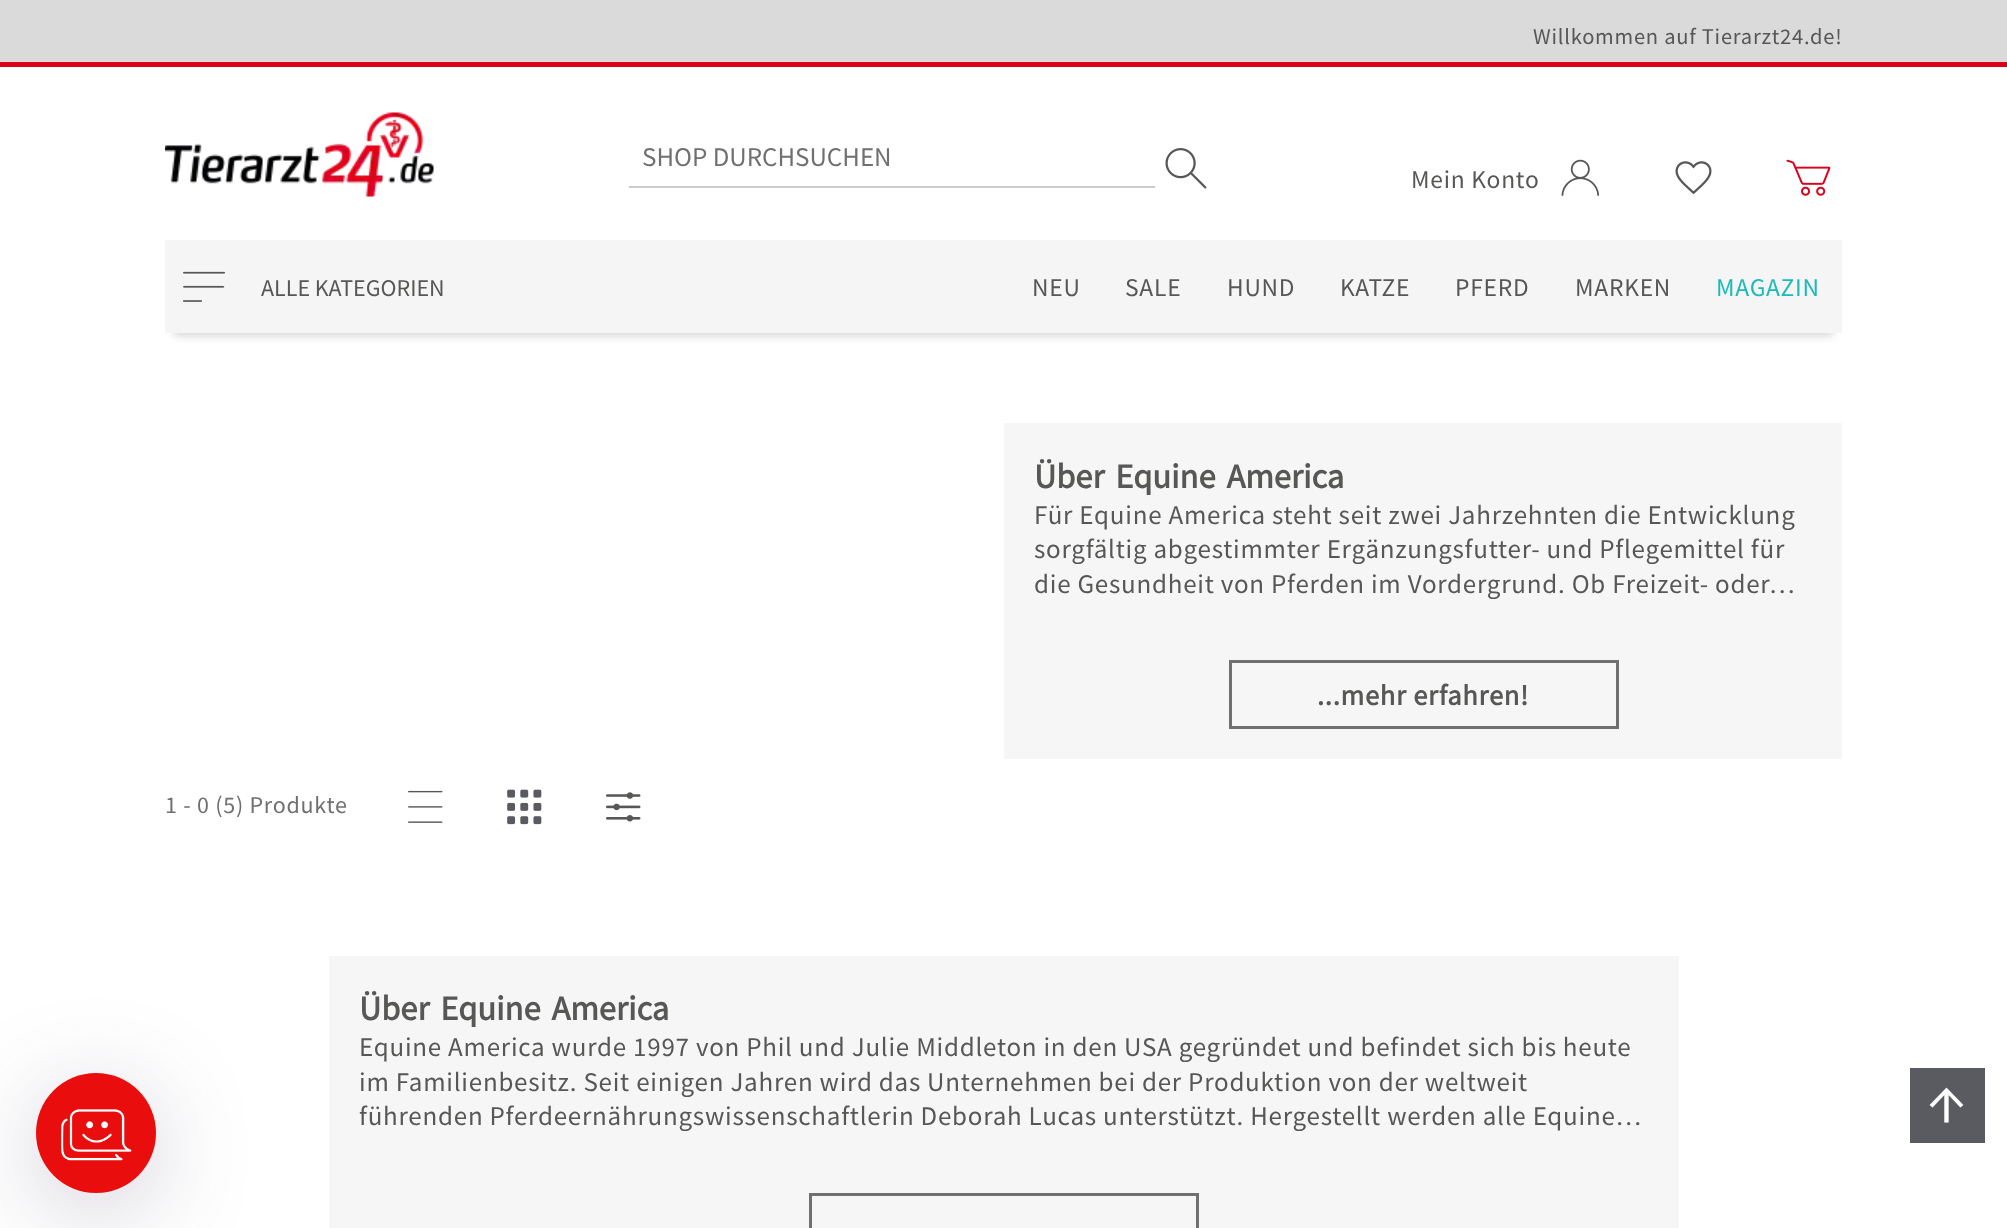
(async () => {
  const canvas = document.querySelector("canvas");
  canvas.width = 2007;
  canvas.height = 1228;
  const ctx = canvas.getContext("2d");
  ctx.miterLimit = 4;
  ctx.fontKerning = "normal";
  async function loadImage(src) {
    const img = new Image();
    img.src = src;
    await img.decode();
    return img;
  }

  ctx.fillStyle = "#ffffff";
  ctx.fillRect(0, 0, 2007, 1228);
  ctx.fillStyle = "rgba(62, 47, 89, 0.24)";
  ctx.filter = "blur(48px)";
  ctx.beginPath();
  ctx.roundRect(36, 1091, 120, 120, 60);
  ctx.fill();
  ctx.filter = "none";
  ctx.fillStyle = "#ea0d0d";
  ctx.beginPath();
  ctx.arc(96, 1133, 60, 0, Math.PI * 2);
  ctx.fill();
  ctx.drawImage(await loadImage("img/1.png"), 61, 1109, 71, 52);
  ctx.fillStyle = "#dadada";
  ctx.fillRect(0, 0, 2007, 62);
  ctx.fillStyle = "#da001b";
  ctx.fillRect(0, 62, 2007, 5);
  ctx.drawImage(await loadImage("img/2.png"), 165, 112, 269, 85);
  ctx.fillStyle = "#cccccc";
  ctx.fillRect(629, 186, 526, 2);
  ctx.drawImage(await loadImage("img/3.png"), 1165, 148, 42, 41);
  ctx.drawImage(await loadImage("img/4.png"), 1561, 159, 39, 37);
  ctx.drawImage(await loadImage("img/5.png"), 1675, 161, 37, 34);
  ctx.drawImage(await loadImage("img/6.png"), 1786, 159, 45, 37);
  ctx.fillStyle = "rgba(0, 0, 0, 0.16)";
  ctx.filter = "blur(4.5px)";
  ctx.beginPath();
  ctx.rect(174, 261, 1659, 75);
  ctx.fill();
  ctx.filter = "none";
  ctx.fillStyle = "#f5f5f5";
  ctx.fillRect(165, 240, 1677, 93);
  ctx.drawImage(await loadImage("img/7.png"), 183, 271, 42, 31);
  ctx.fillStyle = "#f6f6f6";
  ctx.fillRect(1004, 423, 838, 336);
  ctx.strokeStyle = "#707070";
  ctx.lineWidth = 3;
  ctx.strokeRect(1230.5, 661.5, 387, 66);
  ctx.drawImage(await loadImage("img/8.png"), 408, 790, 35, 33);
  ctx.drawImage(await loadImage("img/9.png"), 507, 789, 35, 36);
  ctx.drawImage(await loadImage("img/10.png"), 606, 792, 35, 30);
  ctx.fillRect(329, 956, 1350, 272);
  ctx.strokeRect(810.5, 1194.5, 387, 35);
  ctx.fillStyle = "#595b60";
  ctx.fillRect(1910, 1068, 75, 75);
  ctx.letterSpacing = "0.75px";
  ctx.font = "22.5px Source Sans Pro";
  ctx.fillStyle = "#575756";
  ctx.fillText("Willkommen auf Tierarzt24.de!", 1533, 44);
  ctx.letterSpacing = "0px";
  ctx.font = "27px Source Sans Pro";
  ctx.fillStyle = "#707070";
  ctx.fillText("SHOP DURCHSUCHEN", 642, 166);
  ctx.letterSpacing = "0.75px";
  ctx.font = "25.5px Source Sans Pro";
  ctx.fillStyle = "#575756";
  ctx.fillText("Mein Konto", 1411, 188);
  ctx.letterSpacing = "0px";
  ctx.font = "24px Source Sans Pro";
  ctx.fillText("ALLE KATEGORIEN", 261, 296);
  ctx.letterSpacing = "0.75px";
  ctx.font = "25.5px Source Sans Pro";
  for (const [text, x, y] of [
    ["NEU", 1032, 296],
    ["SALE", 1125, 296],
    ["HUND", 1227, 296],
    ["KATZE", 1340, 296],
    ["PFERD", 1455, 296],
    ["MARKEN", 1575, 296],
  ]) {
    ctx.fillText(text, x, y);
  }
  ctx.fillStyle = "#1cbbb7";
  ctx.fillText("MAGAZIN", 1716, 296);
  ctx.letterSpacing = "0px";
  ctx.wordSpacing = "4px";
  ctx.font = "bold 34.5px Source Sans Pro";
  ctx.fillStyle = "#575756";
  ctx.fillText("Über Equine America", 1034, 488);
  ctx.letterSpacing = "0.75px";
  ctx.wordSpacing = "0px";
  ctx.font = "27px Source Sans Pro";
  for (const [text, x, y] of [
    ["Für Equine America steht seit zwei Jahrzehnten die Entwicklung", 1034, 524],
    ["sorgfältig abgestimmter Ergänzungsfutter- und Pflegemittel für", 1034, 558],
    ["die Gesundheit von Pferden im Vordergrund. Ob Freizeit- oder…", 1034, 593],
  ]) {
    ctx.fillText(text, x, y);
  }
  ctx.font = "bold 28.5px Source Sans Pro";
  ctx.fillText("...mehr erfahren!", 1317, 705);
  ctx.font = "24px Source Sans Pro";
  ctx.fillStyle = "#707070";
  ctx.fillText("1 - 0 (5) Produkte", 165, 813);
  ctx.letterSpacing = "0px";
  ctx.wordSpacing = "4px";
  ctx.font = "bold 34.5px Source Sans Pro";
  ctx.fillStyle = "#575756";
  ctx.fillText("Über Equine America", 359, 1020);
  ctx.letterSpacing = "0.75px";
  ctx.wordSpacing = "0px";
  ctx.font = "27px Source Sans Pro";
  for (const [text, x, y] of [
    ["Equine America wurde 1997 von Phil und Julie Middleton in den USA gegründet und befindet sich bis heute", 359, 1056],
    ["im Familienbesitz. Seit einigen Jahren wird das Unternehmen bei der Produktion von der weltweit", 359, 1091],
    ["führenden Pferdeernährungswissenschaftlerin Deborah Lucas unterstützt. Hergestellt werden alle Equine…", 359, 1125],
  ]) {
    ctx.fillText(text, x, y);
  }
  ctx.font = "63px Source Sans Pro";
  ctx.fillStyle = "#ffffff";
  ctx.fillText("↑", 1927, 1121);
})();
